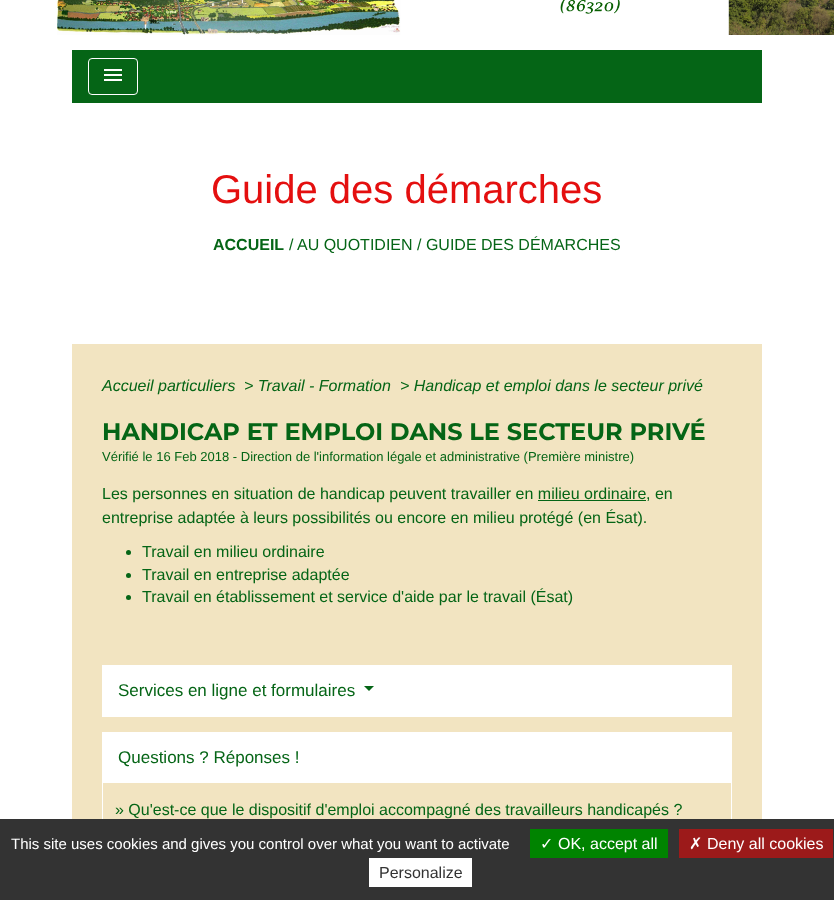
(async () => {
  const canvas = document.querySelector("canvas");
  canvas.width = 834;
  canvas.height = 900;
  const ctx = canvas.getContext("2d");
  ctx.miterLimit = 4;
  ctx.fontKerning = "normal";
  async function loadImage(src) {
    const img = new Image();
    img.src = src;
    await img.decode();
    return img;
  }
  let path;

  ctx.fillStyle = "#ffffff";
  ctx.fillRect(0, 0, 834, 900);
  ctx.drawImage(await loadImage("img/1.png"), 57, 0, 777, 35);
  ctx.fillStyle = "#056516";
  ctx.fillRect(72, 50, 690, 53);
  ctx.beginPath();
  ctx.roundRect(88.5, 58.5, 49, 36, 3.5);
  ctx.strokeStyle = "#ffffff";
  ctx.stroke();
  ctx.drawImage(await loadImage("img/2.png"), 104, 69, 18, 12);
  ctx.fillStyle = "#f2e4c1";
  ctx.fillRect(72, 344, 690, 475);
  ctx.fillStyle = "#056516";
  ctx.fillRect(538, 500, 108, 1);
  ctx.beginPath();
  ctx.arc(128.5, 552.5, 2.5, 0, Math.PI * 2);
  ctx.fill();
  ctx.beginPath();
  ctx.arc(128.5, 575.5, 2.5, 0, Math.PI * 2);
  ctx.fill();
  ctx.beginPath();
  ctx.arc(128.5, 597.5, 2.5, 0, Math.PI * 2);
  ctx.fill();
  ctx.strokeRect(102.5, 665.5, 629, 51);
  ctx.fillStyle = "#ffffff";
  ctx.fillRect(103, 666, 628, 50);
  ctx.fillStyle = "#056516";
  path = new Path2D("M364 686H374L369 691Z");
  ctx.fill(path);
  ctx.strokeRect(102.5, 732.5, 629, 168);
  for (const [x, y, w, h, color] of [
    [103, 733, 628, 50, "#ffffff"],
    [0, 819, 834, 81, "#333333"],
    [530, 829, 138, 29, "#008300"],
    [679, 829, 154, 29, "#9c1a1a"],
    [369, 858, 103, 29, "#ffffff"],
  ]) {
    ctx.fillStyle = color;
    ctx.fillRect(x, y, w, h);
  }
  ctx.font = "40px Liberation Sans";
  ctx.fillStyle = "#e40f0f";
  ctx.fillText("Guide des démarches", 211, 203);
  ctx.font = "bold 16px Liberation Sans";
  ctx.fillStyle = "#056516";
  ctx.fillText("ACCUEIL", 213, 250);
  ctx.font = "16px Liberation Sans";
  for (const [text, x, y] of [
    ["/", 289, 250],
    ["AU QUOTIDIEN", 297, 250],
    ["/ GUIDE DES DÉMARCHES", 417, 250],
  ]) {
    ctx.fillText(text, x, y);
  }
  ctx.font = "italic 16px Liberation Sans";
  for (const [text, x, y] of [
    ["Accueil particuliers", 102, 391],
    ["> Travail - Formation", 244, 391],
    ["> Handicap et emploi dans le secteur privé", 400, 391],
  ]) {
    ctx.fillText(text, x, y);
  }
  ctx.font = "bold 24px Montserrat";
  ctx.fillText("HANDICAP ET EMPLOI DANS LE SECTEUR PRIVÉ", 102, 440);
  ctx.font = "13px Liberation Sans";
  ctx.fillText("Vérifié le 16 Feb 2018 - Direction de l'information légale et administrative (Première ministre)", 102, 461);
  ctx.font = "16px Liberation Sans";
  for (const [text, x, y] of [
    ["Les personnes en situation de handicap peuvent travailler en milieu ordinaire", 102, 499],
    [", en", 646, 499],
    ["entreprise adaptée à leurs possibilités ou encore en milieu protégé (en Ésat).", 102, 523],
    ["Travail en milieu ordinaire", 142, 557],
    ["Travail en entreprise adaptée", 142, 580],
    ["Travail en établissement et service d'aide par le travail (Ésat)", 142, 602],
  ]) {
    ctx.fillText(text, x, y);
  }
  ctx.font = "17px Liberation Sans";
  ctx.fillText("Services en ligne et formulaires", 118, 696);
  ctx.fillText("Questions ? Réponses !", 118, 763);
  ctx.font = "16px Liberation Sans";
  ctx.fillText("» Qu'est-ce que le dispositif d'emploi accompagné des travailleurs handicapés ?", 115, 815);
  ctx.font = "15px Liberation Sans";
  ctx.fillStyle = "#ffffff";
  ctx.fillText("This site uses cookies and gives you control over what you want to activate", 11, 849);
  ctx.font = "16px DejaVu Sans";
  ctx.fillText("✓", 540, 849);
  ctx.font = "16px Liberation Sans";
  ctx.fillText("OK, accept all", 558, 849);
  ctx.font = "16px DejaVu Sans";
  ctx.fillText("✗", 689, 849);
  ctx.font = "16px Liberation Sans";
  ctx.fillText("Deny all cookies", 707, 849);
  ctx.fillStyle = "#333333";
  ctx.fillText("Personalize", 379, 878);
})();
